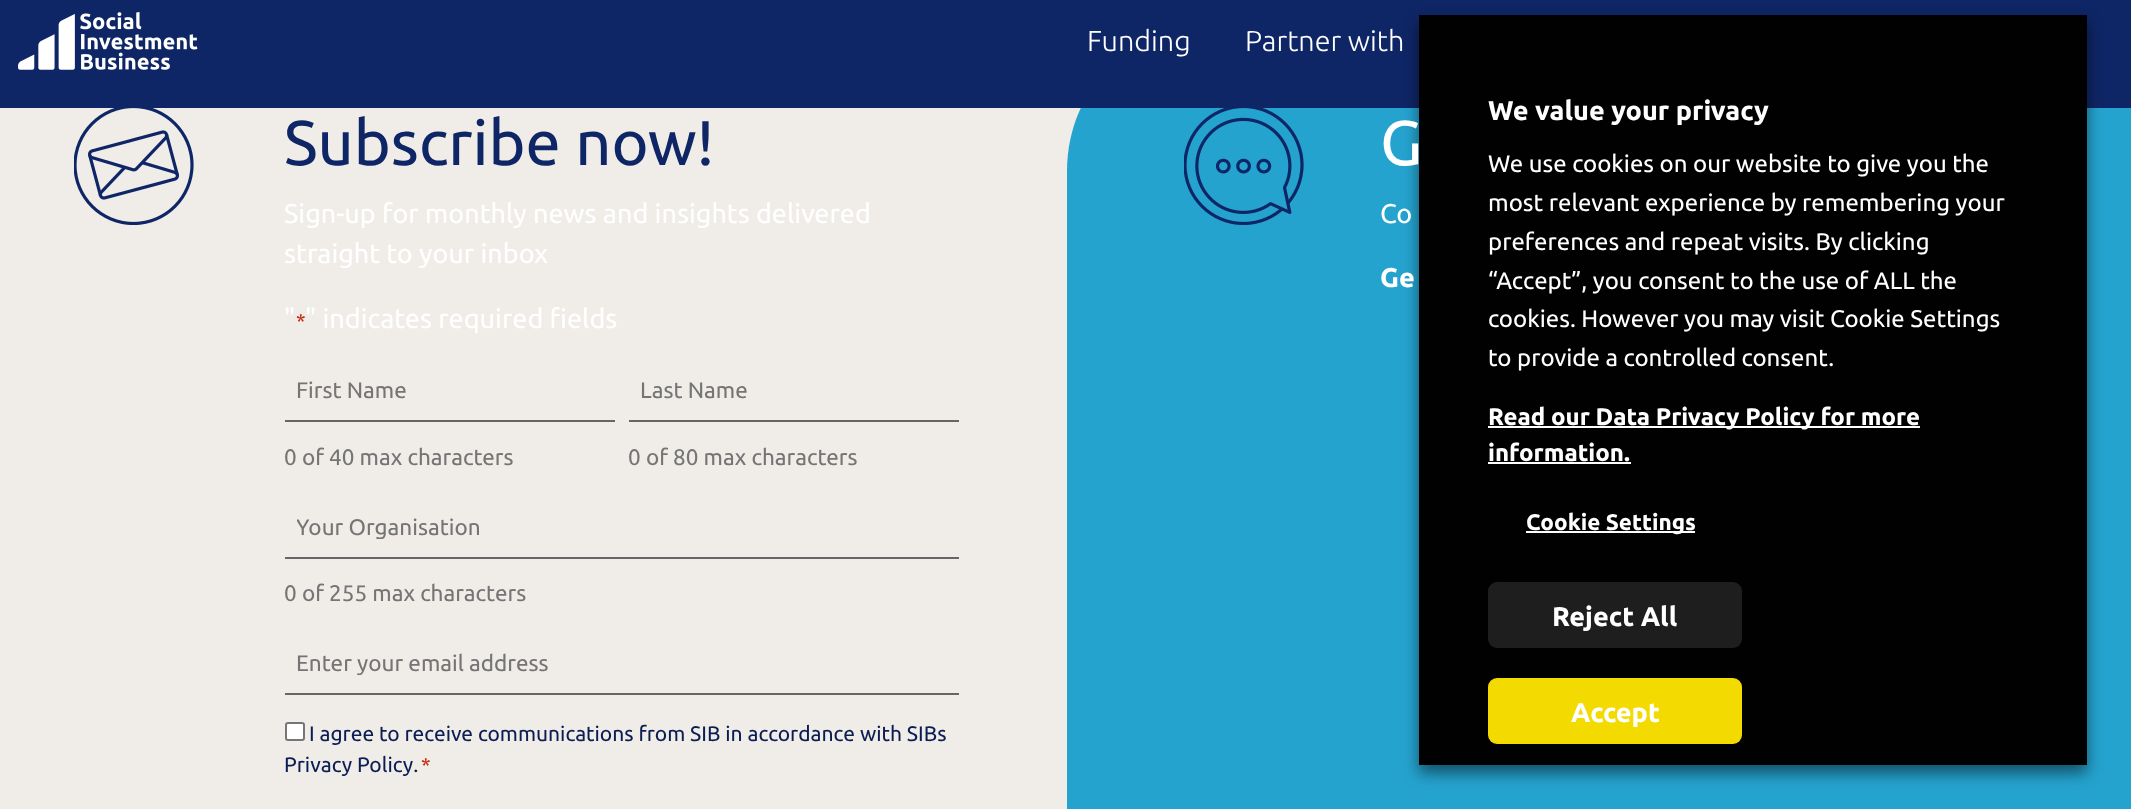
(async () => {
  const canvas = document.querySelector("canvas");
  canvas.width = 2131;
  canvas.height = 809;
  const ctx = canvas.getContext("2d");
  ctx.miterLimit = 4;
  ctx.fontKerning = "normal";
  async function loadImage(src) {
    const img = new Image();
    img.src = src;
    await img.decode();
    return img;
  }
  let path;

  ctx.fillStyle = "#f0ede9";
  ctx.fillRect(0, 0, 2131, 809);
  ctx.fillStyle = "#25a3cf";
  path = new Path2D("M1217 21H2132V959H1067V171C1067 88 1134 21 1217 21Z");
  ctx.fill(path);
  ctx.fillStyle = "#0f2666";
  ctx.fillRect(0, 0, 2131, 108);
  ctx.drawImage(await loadImage("img/1.png"), 18, 12, 180, 58);
  ctx.drawImage(await loadImage("img/2.png"), 74, 108, 120, 117);
  for (const [x, y, w, h, color] of [
    [285, 420, 330, 2, "#666666"],
    [629, 420, 330, 2, "#666666"],
    [285, 557, 674, 2, "#666666"],
    [285, 693, 674, 2, "#666666"],
  ]) {
    ctx.fillStyle = color;
    ctx.fillRect(x, y, w, h);
  }
  ctx.fillStyle = "#ffffff";
  ctx.beginPath();
  ctx.roundRect(286, 723, 18, 17, 2);
  ctx.fill();
  ctx.strokeStyle = "#767676";
  ctx.lineWidth = 2;
  ctx.stroke();
  ctx.drawImage(await loadImage("img/3.png"), 1184, 108, 120, 117);
  ctx.fillStyle = "rgba(0, 0, 0, 0.5)";
  ctx.filter = "blur(7.5px)";
  ctx.beginPath();
  ctx.rect(1419, 23, 668, 750);
  ctx.fill();
  ctx.filter = "none";
  for (const [x, y, w, h, color] of [
    [1419, 15, 668, 750, "#010101"],
    [1488, 426, 432, 2, "#ffffff"],
    [1488, 462, 143, 2, "#ffffff"],
    [1526, 531, 169, 2, "#ffffff"],
  ]) {
    ctx.fillStyle = color;
    ctx.fillRect(x, y, w, h);
  }
  ctx.fillStyle = "#1e1e1e";
  ctx.beginPath();
  ctx.roundRect(1488, 582, 254, 66, 9);
  ctx.fill();
  ctx.fillStyle = "#f3da00";
  ctx.beginPath();
  ctx.roundRect(1488, 678, 254, 66, 9);
  ctx.fill();
  ctx.font = "300 28.75px Ubuntu";
  ctx.fillStyle = "#ffffff";
  ctx.fillText("Funding", 1087, 51);
  ctx.fillText("Partner with", 1245, 51);
  ctx.font = "63px Ubuntu";
  ctx.fillStyle = "#0f2666";
  ctx.fillText("Subscribe now!", 284, 165);
  ctx.font = "27px Ubuntu";
  ctx.fillStyle = "#ffffff";
  for (const [text, x, y] of [
    ["Sign-up for monthly news and insights delivered", 284, 223],
    ["straight to your inbox", 284, 263],
    ["\"", 284, 328],
  ]) {
    ctx.fillText(text, x, y);
  }
  ctx.font = "20px Ubuntu";
  ctx.fillStyle = "#c02b0a";
  ctx.fillText("*", 296, 328);
  ctx.font = "27px Ubuntu";
  ctx.fillStyle = "#ffffff";
  ctx.fillText("\" indicates required fields", 305, 328);
  ctx.font = "22.5px Ubuntu";
  ctx.fillStyle = "#757575";
  for (const [text, x, y] of [
    ["First Name", 296, 398],
    ["0 of 40 max characters", 284, 465],
    ["Last Name", 640, 398],
    ["0 of 80 max characters", 628, 465],
  ]) {
    ctx.fillText(text, x, y);
  }
  ctx.save();
  ctx.beginPath();
  ctx.rect(297, 513, 650, 26);
  ctx.clip();
  ctx.fillText("Your Organisation", 296, 535);
  ctx.restore();
  ctx.fillText("0 of 255 max characters", 284, 601);
  ctx.save();
  ctx.beginPath();
  ctx.rect(297, 650, 650, 25);
  ctx.clip();
  ctx.fillText("Enter your email address", 296, 671);
  ctx.restore();
  ctx.font = "21px Ubuntu";
  ctx.fillStyle = "#0b1d52";
  ctx.fillText("I agree to receive communications from SIB in accordance with SIBs", 309, 741);
  ctx.fillText("Privacy Policy.", 284, 772);
  ctx.font = "20px Ubuntu";
  ctx.fillStyle = "#c02b0a";
  ctx.fillText("*", 421, 772);
  ctx.font = "63px Ubuntu";
  ctx.fillStyle = "#ffffff";
  ctx.fillText("G", 1380, 165);
  ctx.font = "27px Ubuntu";
  ctx.fillText("Co", 1380, 223);
  ctx.font = "bold 27px Ubuntu";
  ctx.fillText("Ge", 1380, 287);
  ctx.fillText("We value your privacy", 1488, 120);
  ctx.font = "24px Ubuntu";
  for (const [text, x, y] of [
    ["We use cookies on our website to give you the", 1488, 172],
    ["most relevant experience by remembering your", 1488, 211],
    ["preferences and repeat visits. By clicking", 1488, 250],
    ["“Accept”, you consent to the use of ALL the", 1488, 289],
    ["cookies. However you may visit Cookie Settings", 1488, 327],
    ["to provide a controlled consent.", 1488, 366],
  ]) {
    ctx.fillText(text, x, y);
  }
  ctx.font = "bold 24px Ubuntu";
  ctx.fillText("Read our Data Privacy Policy for more", 1488, 425);
  ctx.fillText("information.", 1488, 461);
  ctx.font = "bold 22.5px Ubuntu";
  ctx.fillText("Cookie Settings", 1526, 530);
  ctx.font = "bold 27px Ubuntu";
  ctx.fillText("Reject All", 1552, 626);
  ctx.fillText("Accept", 1571, 722);
})();
